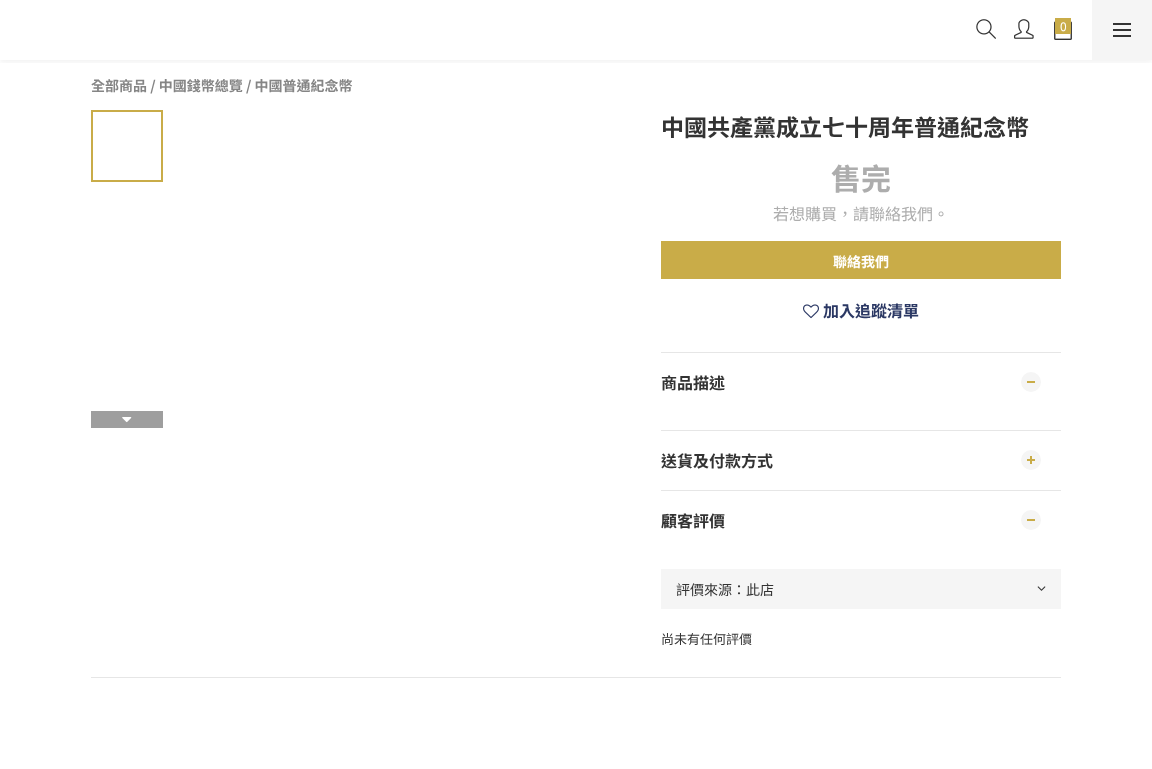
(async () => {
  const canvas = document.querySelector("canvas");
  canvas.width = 1152;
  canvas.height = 769;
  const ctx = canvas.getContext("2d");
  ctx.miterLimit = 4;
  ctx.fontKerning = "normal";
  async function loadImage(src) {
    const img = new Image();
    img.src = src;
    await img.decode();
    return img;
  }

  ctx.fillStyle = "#ffffff";
  ctx.fillRect(0, 0, 1152, 769);
  ctx.save();
  ctx.beginPath();
  ctx.rect(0, 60, 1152, 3);
  ctx.clip();
  ctx.fillStyle = "rgba(0, 0, 0, 0.06)";
  ctx.filter = "blur(3px)";
  ctx.beginPath();
  ctx.rect(0, 2, 1152, 60);
  ctx.fill();
  ctx.filter = "none";
  ctx.restore();
  ctx.drawImage(await loadImage("img/1.png"), 976, 19, 20, 20);
  ctx.drawImage(await loadImage("img/2.png"), 1014, 19, 20, 20);
  ctx.drawImage(await loadImage("img/3.png"), 1054, 21, 18, 19);
  for (const [x, y, w, h, color] of [
    [1055, 18, 16, 16, "#c9ac48"],
    [1092, 0, 60, 60, "#f5f5f5"],
    [1113, 29, 18, 2, "#333333"],
    [1113, 23, 18, 2, "#333333"],
    [1113, 35, 18, 2, "#333333"],
  ]) {
    ctx.fillStyle = color;
    ctx.fillRect(x, y, w, h);
  }
  ctx.strokeStyle = "#c9ac48";
  ctx.lineWidth = 2;
  ctx.strokeRect(92, 111, 70, 70);
  ctx.fillStyle = "#9e9e9e";
  ctx.fillRect(91, 411, 72, 17);
  ctx.drawImage(await loadImage("img/4.png"), 122, 417, 10, 6);
  ctx.fillStyle = "#c9ac48";
  ctx.fillRect(661, 241, 400, 38);
  ctx.drawImage(await loadImage("img/5.png"), 803, 304, 16, 15);
  ctx.fillStyle = "#e6e6e6";
  ctx.fillRect(661, 352, 400, 1);
  ctx.fillStyle = "#f5f5f5";
  ctx.beginPath();
  ctx.arc(1031, 382, 10, 0, Math.PI * 2);
  ctx.fill();
  ctx.fillStyle = "#c9ac48";
  ctx.fillRect(1027, 381, 8, 2);
  ctx.fillStyle = "#e6e6e6";
  ctx.fillRect(661, 430, 400, 1);
  ctx.fillStyle = "#f5f5f5";
  ctx.beginPath();
  ctx.arc(1031, 460, 10, 0, Math.PI * 2);
  ctx.fill();
  for (const [x, y, w, h, color] of [
    [1027, 459, 8, 2, "#c9ac48"],
    [1030, 456, 2, 8, "#c9ac48"],
    [661, 490, 400, 1, "#e6e6e6"],
  ]) {
    ctx.fillStyle = color;
    ctx.fillRect(x, y, w, h);
  }
  ctx.fillStyle = "#f5f5f5";
  ctx.beginPath();
  ctx.arc(1031, 520, 10, 0, Math.PI * 2);
  ctx.fill();
  ctx.fillStyle = "#c9ac48";
  ctx.fillRect(1027, 519, 8, 2);
  ctx.fillStyle = "#f5f5f5";
  ctx.fillRect(661, 569, 400, 40);
  ctx.drawImage(await loadImage("img/6.png"), 1037, 586, 9, 5);
  ctx.fillStyle = "#e6e6e6";
  ctx.fillRect(91, 677, 970, 1);
  ctx.font = "12px Noto Sans TC";
  ctx.fillStyle = "#ffffff";
  ctx.fillText("0", 1060, 31);
  ctx.font = "bold 14px Noto Sans TC";
  ctx.fillStyle = "#858585";
  ctx.fillText("全部商品 / 中國錢幣總覽 / 中國普通紀念幣", 91, 91);
  ctx.font = "bold 23px Noto Sans TC";
  ctx.fillStyle = "#333333";
  ctx.fillText("中國共產黨成立七十周年普通紀念幣", 661, 136);
  ctx.font = "bold 30px Noto Sans TC";
  ctx.fillStyle = "#adadad";
  ctx.fillText("售完", 831, 190);
  ctx.font = "16px Noto Sans TC";
  ctx.fillText("若想購買，請聯絡我們。", 773, 220);
  ctx.font = "bold 14px Noto Sans TC";
  ctx.fillStyle = "#ffffff";
  ctx.fillText("聯絡我們", 833, 267);
  ctx.font = "bold 16px Noto Sans TC";
  ctx.fillStyle = "#2b3864";
  ctx.fillText("加入追蹤清單", 823, 317);
  ctx.fillStyle = "#333333";
  for (const [text, x, y] of [
    ["商品描述", 661, 389],
    ["送貨及付款方式", 661, 467],
    ["顧客評價", 661, 527],
  ]) {
    ctx.fillText(text, x, y);
  }
  ctx.font = "14px Noto Sans TC";
  ctx.fillText("評價來源：此店", 676, 595);
  ctx.font = "13px Noto Sans TC";
  ctx.fillText("尚未有任何評價", 661, 644);
})();
